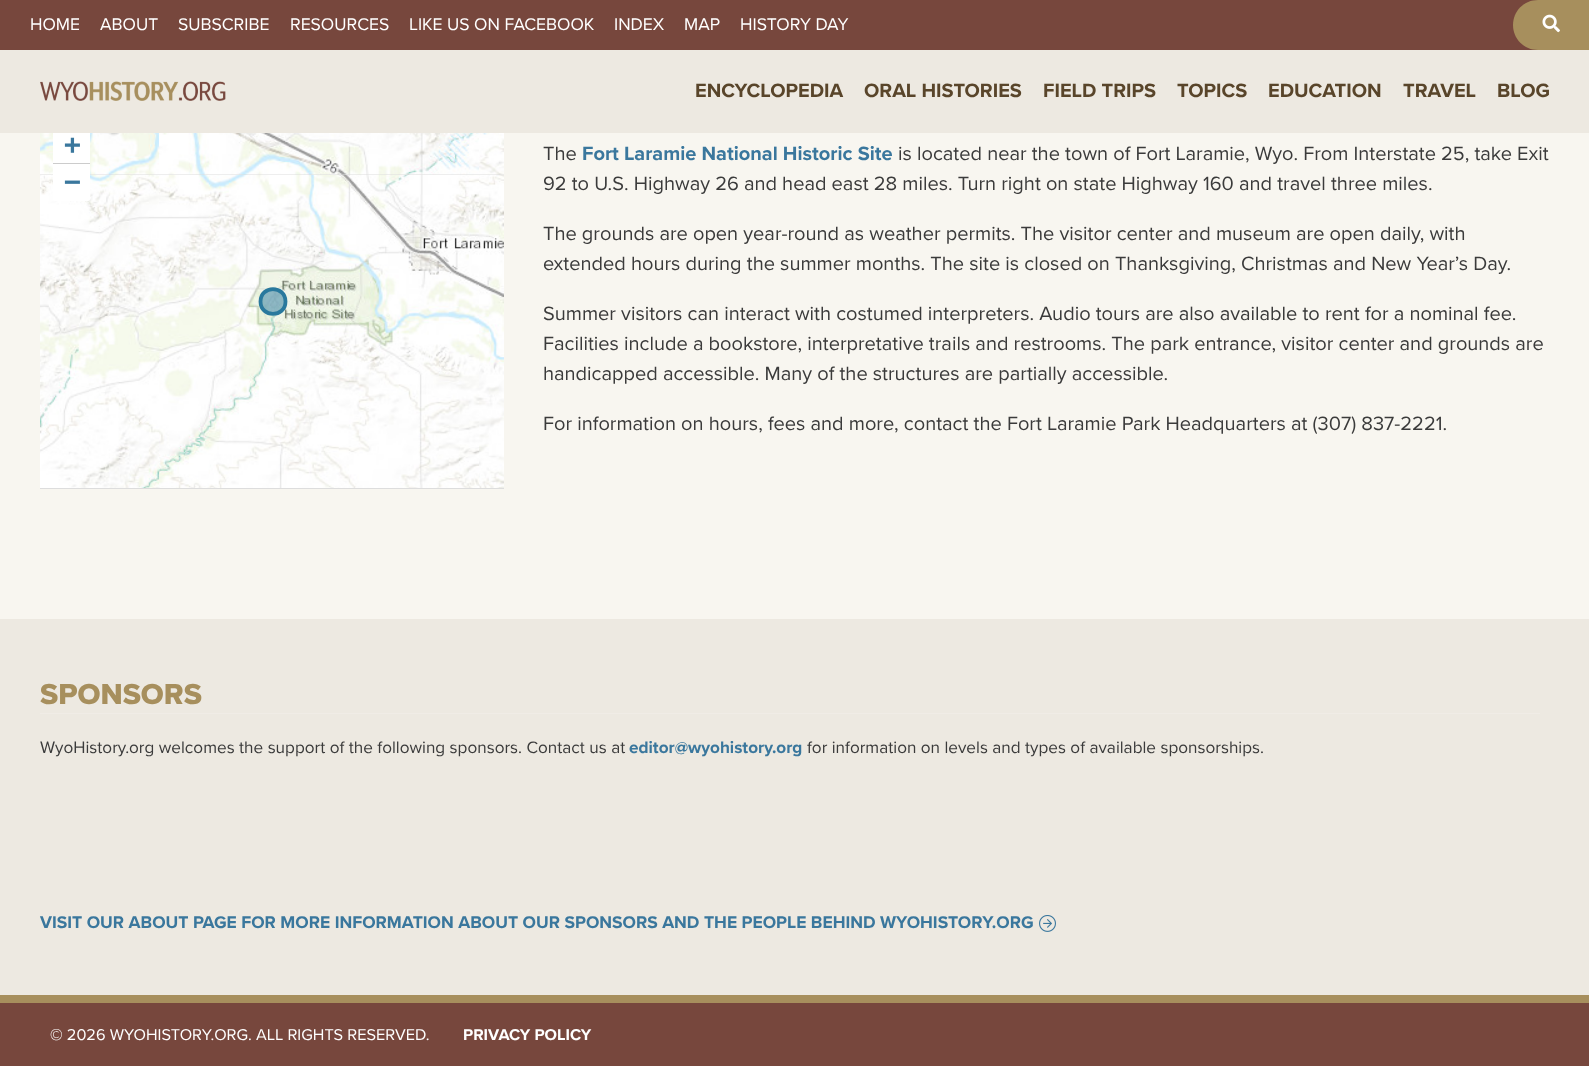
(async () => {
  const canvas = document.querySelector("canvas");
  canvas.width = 1589;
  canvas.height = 1066;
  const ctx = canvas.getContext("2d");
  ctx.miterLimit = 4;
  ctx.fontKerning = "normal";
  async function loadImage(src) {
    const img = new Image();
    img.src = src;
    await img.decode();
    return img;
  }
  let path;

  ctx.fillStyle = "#f8f6f0";
  ctx.fillRect(0, 0, 1589, 1066);
  ctx.fillStyle = "#77473d";
  ctx.fillRect(0, 0, 1538, 50);
  ctx.fillStyle = "#a78f5d";
  path = new Path2D("M1538 0H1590V50H1538C1524 50 1513 39 1513 25C1513 11 1524 0 1538 0Z");
  ctx.fill(path);
  ctx.drawImage(await loadImage("img/1.png"), 1542, 14, 18, 19);
  ctx.fillStyle = "#ede9e1";
  ctx.fillRect(0, 50, 1589, 83);
  ctx.drawImage(await loadImage("img/2.png"), 40, 81, 186, 20);
  ctx.fillStyle = "#dddddd";
  ctx.fillRect(40, 174, 464, 315);
  ctx.drawImage(await loadImage("img/3.png"), 40, 133, 119, 42);
  ctx.drawImage(await loadImage("img/4.png"), 159, 133, 320, 42);
  ctx.drawImage(await loadImage("img/5.png"), 479, 133, 25, 42);
  ctx.drawImage(await loadImage("img/6.png"), 40, 175, 119, 313);
  ctx.drawImage(await loadImage("img/7.png"), 159, 175, 320, 313);
  ctx.drawImage(await loadImage("img/8.png"), 479, 175, 25, 313);
  ctx.fillStyle = "rgba(41, 121, 157, 0.5)";
  path = new Path2D("M260.5 301.5C260.5 318 285.5 318 285.5 301.5C285.5 285 260.5 285 260.5 301.5");
  ctx.fill(path, "evenodd");
  ctx.strokeStyle = "#29799d";
  ctx.lineWidth = 3.8;
  ctx.lineCap = "round";
  ctx.lineJoin = "round";
  ctx.stroke(path);
  ctx.fillStyle = "#ffffff";
  ctx.fillRect(53, 133, 37, 30);
  ctx.fillStyle = "#cccccc";
  ctx.fillRect(53, 163, 37, 1);
  ctx.fillStyle = "#ffffff";
  ctx.beginPath();
  ctx.roundRect(53, 164, 37, 37, [0, 0, 2.5, 2.5]);
  ctx.fill();
  ctx.fillStyle = "#ede9e1";
  ctx.fillRect(0, 619, 1589, 376);
  ctx.fillStyle = "#f0ece6";
  ctx.fillRect(40, 713, 1500, 1);
  ctx.drawImage(await loadImage("img/9.png"), 1039, 915, 17, 17);
  ctx.fillStyle = "#77473d";
  ctx.fillRect(0, 1003, 1589, 63);
  ctx.fillStyle = "#a78f5d";
  ctx.fillRect(0, 995, 1589, 8);
  ctx.font = "17.5px Proxima Nova";
  ctx.fillStyle = "#ffffff";
  for (const [text, x, y] of [
    ["HOME", 30, 30],
    ["ABOUT", 100, 30],
    ["SUBSCRIBE", 178, 30],
    ["RESOURCES", 290, 30],
    ["LIKE US ON FACEBOOK", 409, 30],
    ["INDEX", 614, 30],
    ["MAP", 684, 30],
    ["HISTORY DAY", 740, 30],
  ]) {
    ctx.fillText(text, x, y);
  }
  ctx.font = "bold 20px Proxima Nova";
  ctx.fillStyle = "#59452a";
  for (const [text, x, y] of [
    ["ENCYCLOPEDIA", 695, 97],
    ["ORAL HISTORIES", 864, 97],
    ["FIELD TRIPS", 1043, 97],
    ["TOPICS", 1177, 97],
    ["EDUCATION", 1268, 97],
    ["TRAVEL", 1403, 97],
    ["BLOG", 1497, 97],
  ]) {
    ctx.fillText(text, x, y);
  }
  ctx.font = "bold 28px DejaVu Sans Mono";
  ctx.fillStyle = "#3a779d";
  ctx.fillText("+", 64, 154);
  ctx.fillText("−", 64, 191);
  ctx.font = "20px Proxima Nova";
  ctx.fillStyle = "#3b3b3b";
  ctx.fillText("The", 543, 160);
  ctx.font = "bold 20px Proxima Nova";
  ctx.fillStyle = "#3a779d";
  ctx.fillText("Fort Laramie National Historic Site", 582, 160);
  ctx.font = "20px Proxima Nova";
  ctx.fillStyle = "#3b3b3b";
  for (const [text, x, y] of [
    ["is located near the town of Fort Laramie, Wyo. From Interstate 25, take Exit", 898, 160],
    ["92 to U.S. Highway 26 and head east 28 miles. Turn right on state Highway 160 and travel three miles.", 543, 190],
    ["The grounds are open year-round as weather permits. The visitor center and museum are open daily, with", 543, 240],
    ["extended hours during the summer months. The site is closed on Thanksgiving, Christmas and New Year’s Day.", 543, 270],
    ["Summer visitors can interact with costumed interpreters. Audio tours are also available to rent for a nominal fee.", 543, 320],
    ["Facilities include a bookstore, interpretative trails and restrooms. The park entrance, visitor center and grounds are", 543, 350],
    ["handicapped accessible. Many of the structures are partially accessible.", 543, 380],
    ["For information on hours, fees and more, contact the Fort Laramie Park Headquarters at (307) 837-2221.", 543, 430],
  ]) {
    ctx.fillText(text, x, y);
  }
  ctx.font = "800 30px Proxima Nova";
  ctx.fillStyle = "#a78f5d";
  ctx.fillText("SPONSORS", 40, 704);
  ctx.font = "17.15px Proxima Nova";
  ctx.fillStyle = "#3b3b3b";
  ctx.fillText("WyoHistory.org welcomes the support of the following sponsors. Contact us at", 40, 753);
  ctx.font = "bold 17.15px Proxima Nova";
  ctx.fillStyle = "#3a779d";
  ctx.fillText("editor@wyohistory.org", 629, 753);
  ctx.font = "17.15px Proxima Nova";
  ctx.fillStyle = "#3b3b3b";
  ctx.fillText("for information on levels and types of available sponsorships.", 807, 753);
  ctx.font = "bold 17.5px Proxima Nova";
  ctx.fillStyle = "#3a779d";
  ctx.fillText("VISIT OUR ABOUT PAGE FOR MORE INFORMATION ABOUT OUR SPONSORS AND THE PEOPLE BEHIND WYOHISTORY.ORG", 40, 928);
  ctx.font = "16.25px Proxima Nova";
  ctx.fillStyle = "#ffffff";
  ctx.fillText("© 2026 WYOHISTORY.ORG. ALL RIGHTS RESERVED.", 50, 1040);
  ctx.font = "bold 16.25px Proxima Nova";
  ctx.fillText("PRIVACY POLICY", 463, 1040);
})();
